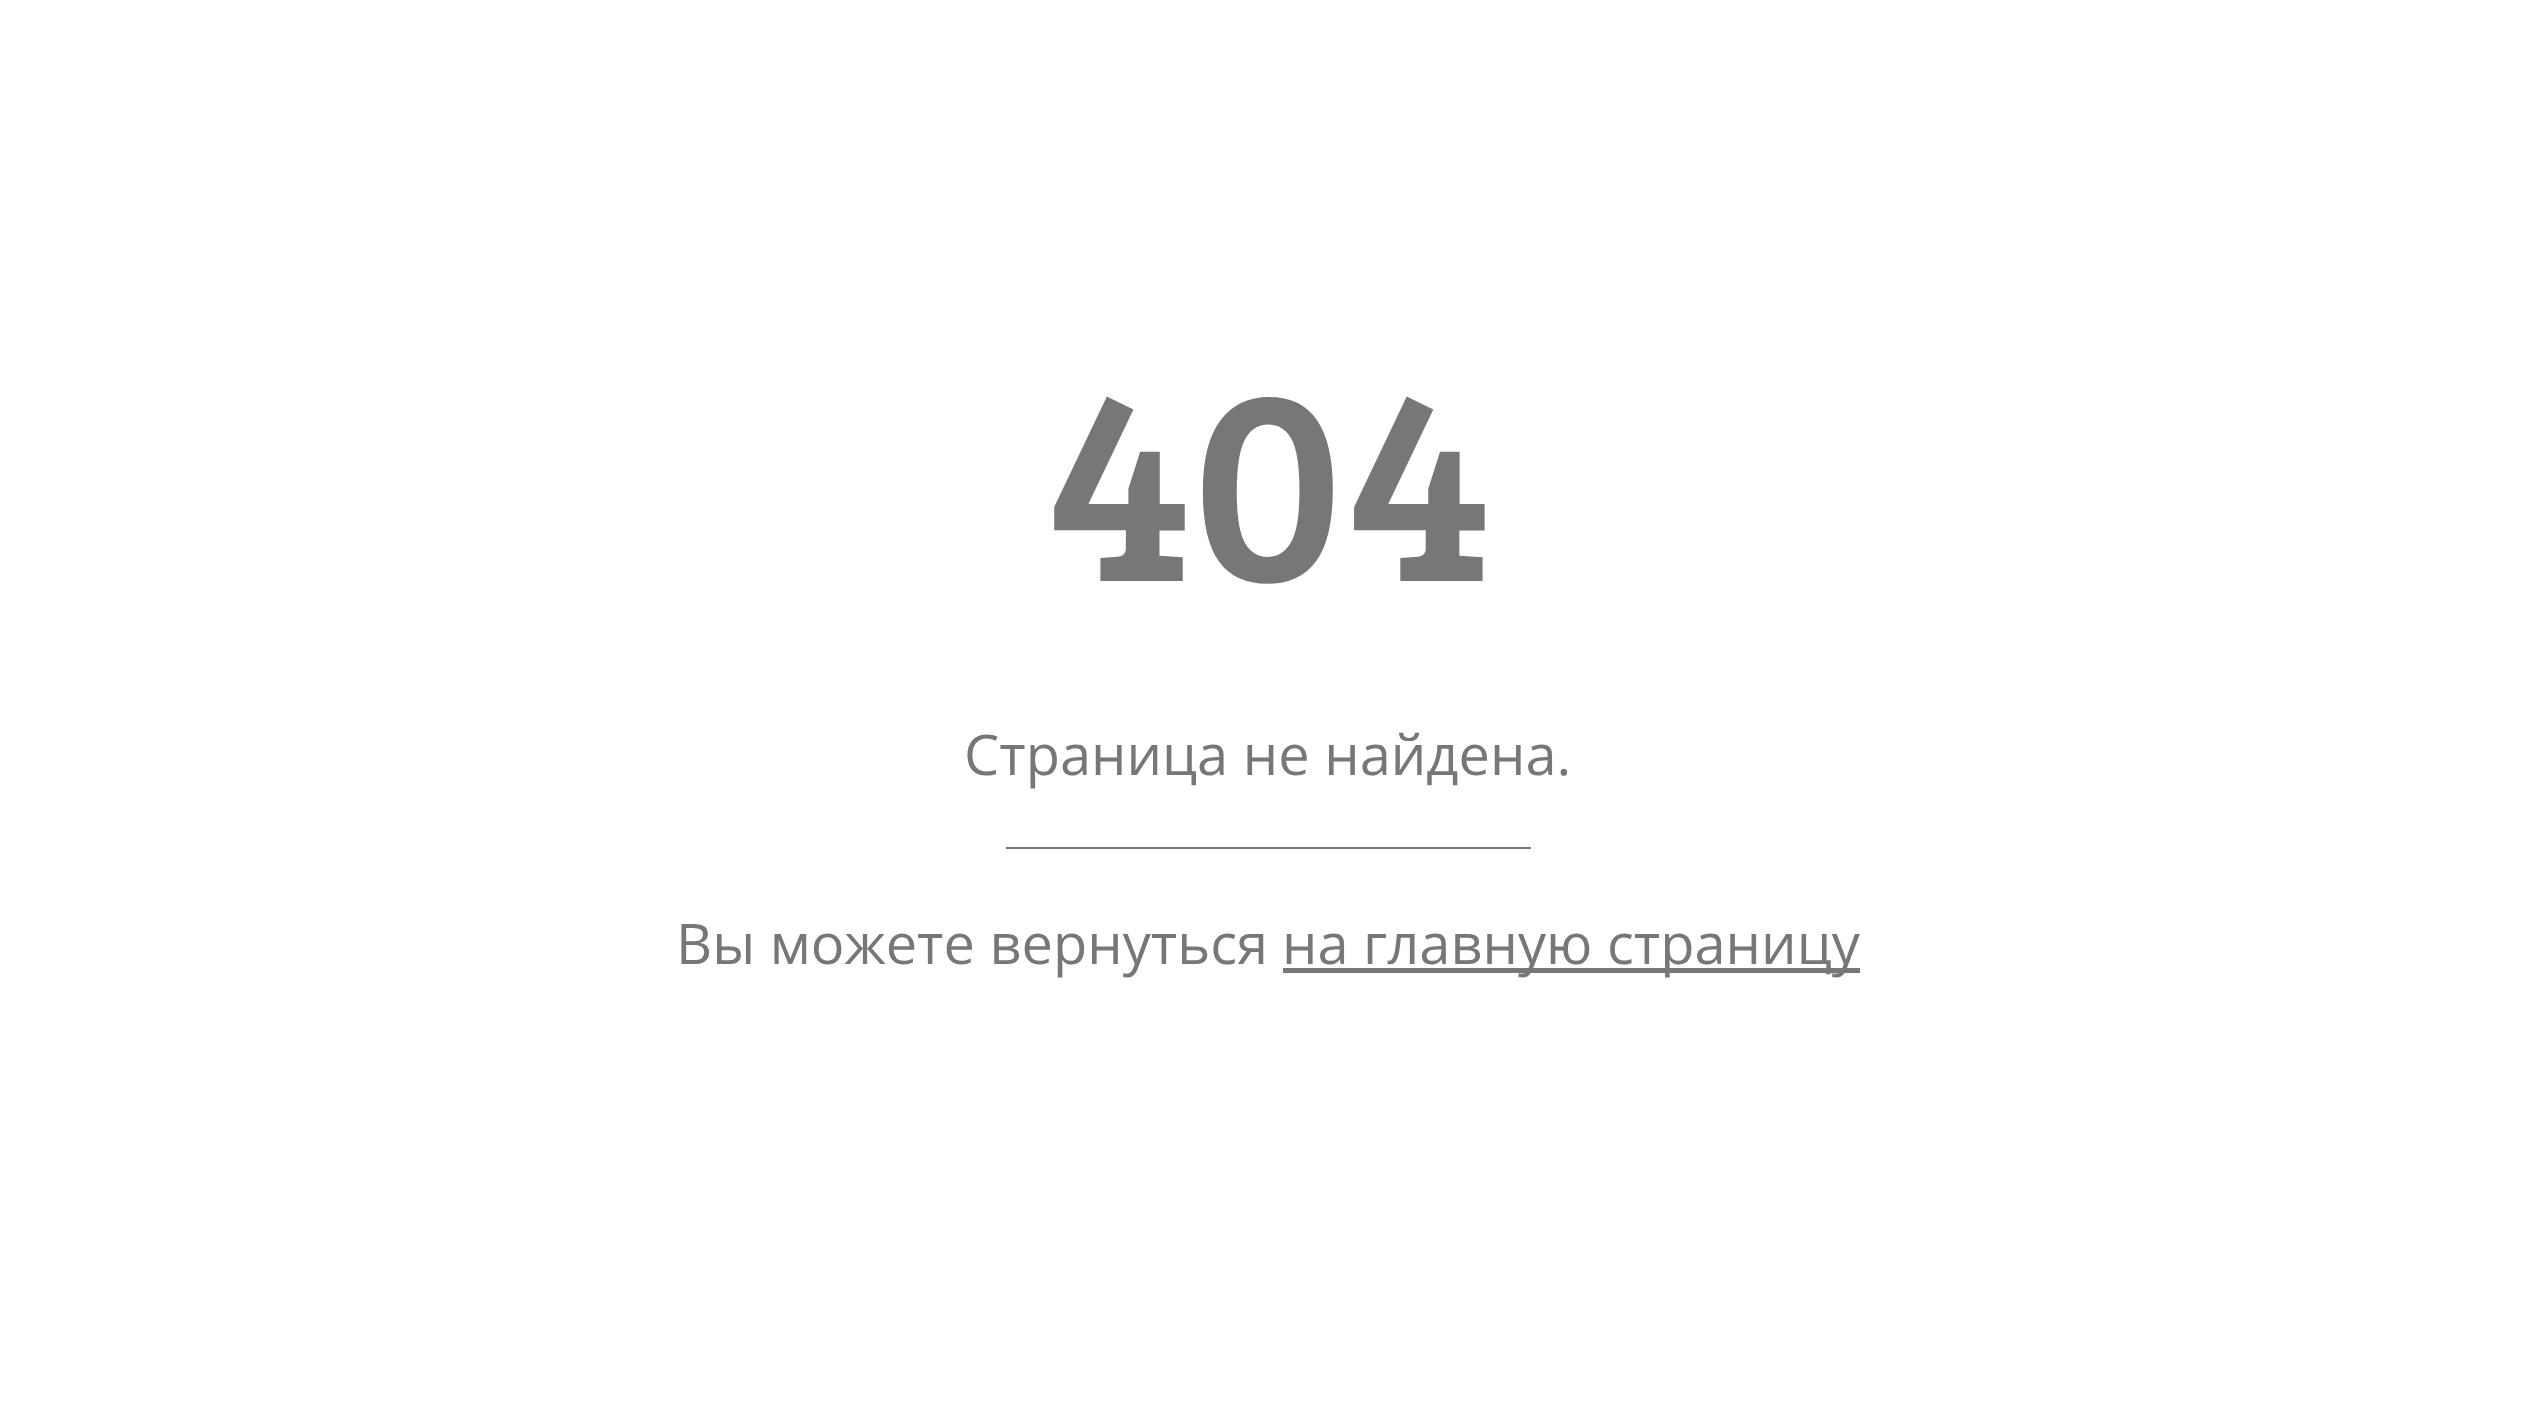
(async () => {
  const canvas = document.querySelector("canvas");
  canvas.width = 2535;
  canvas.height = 1414;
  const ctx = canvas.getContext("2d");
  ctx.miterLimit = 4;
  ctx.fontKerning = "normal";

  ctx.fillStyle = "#ffffff";
  ctx.fillRect(0, 0, 2535, 1414);
  ctx.fillStyle = "#777777";
  ctx.fillRect(1006, 847, 525, 2);
  ctx.fillRect(1283, 968, 577, 5);
  ctx.font = "280px Bree Serif";
  ctx.fillText("404", 1043, 581);
  ctx.font = "56px Open Sans";
  for (const [text, x, y] of [
    ["Страница не найдена.", 964, 775],
    ["Вы можете вернуться", 676, 964],
    ["на главную страницу", 1282, 964],
  ]) {
    ctx.fillText(text, x, y);
  }
})();
